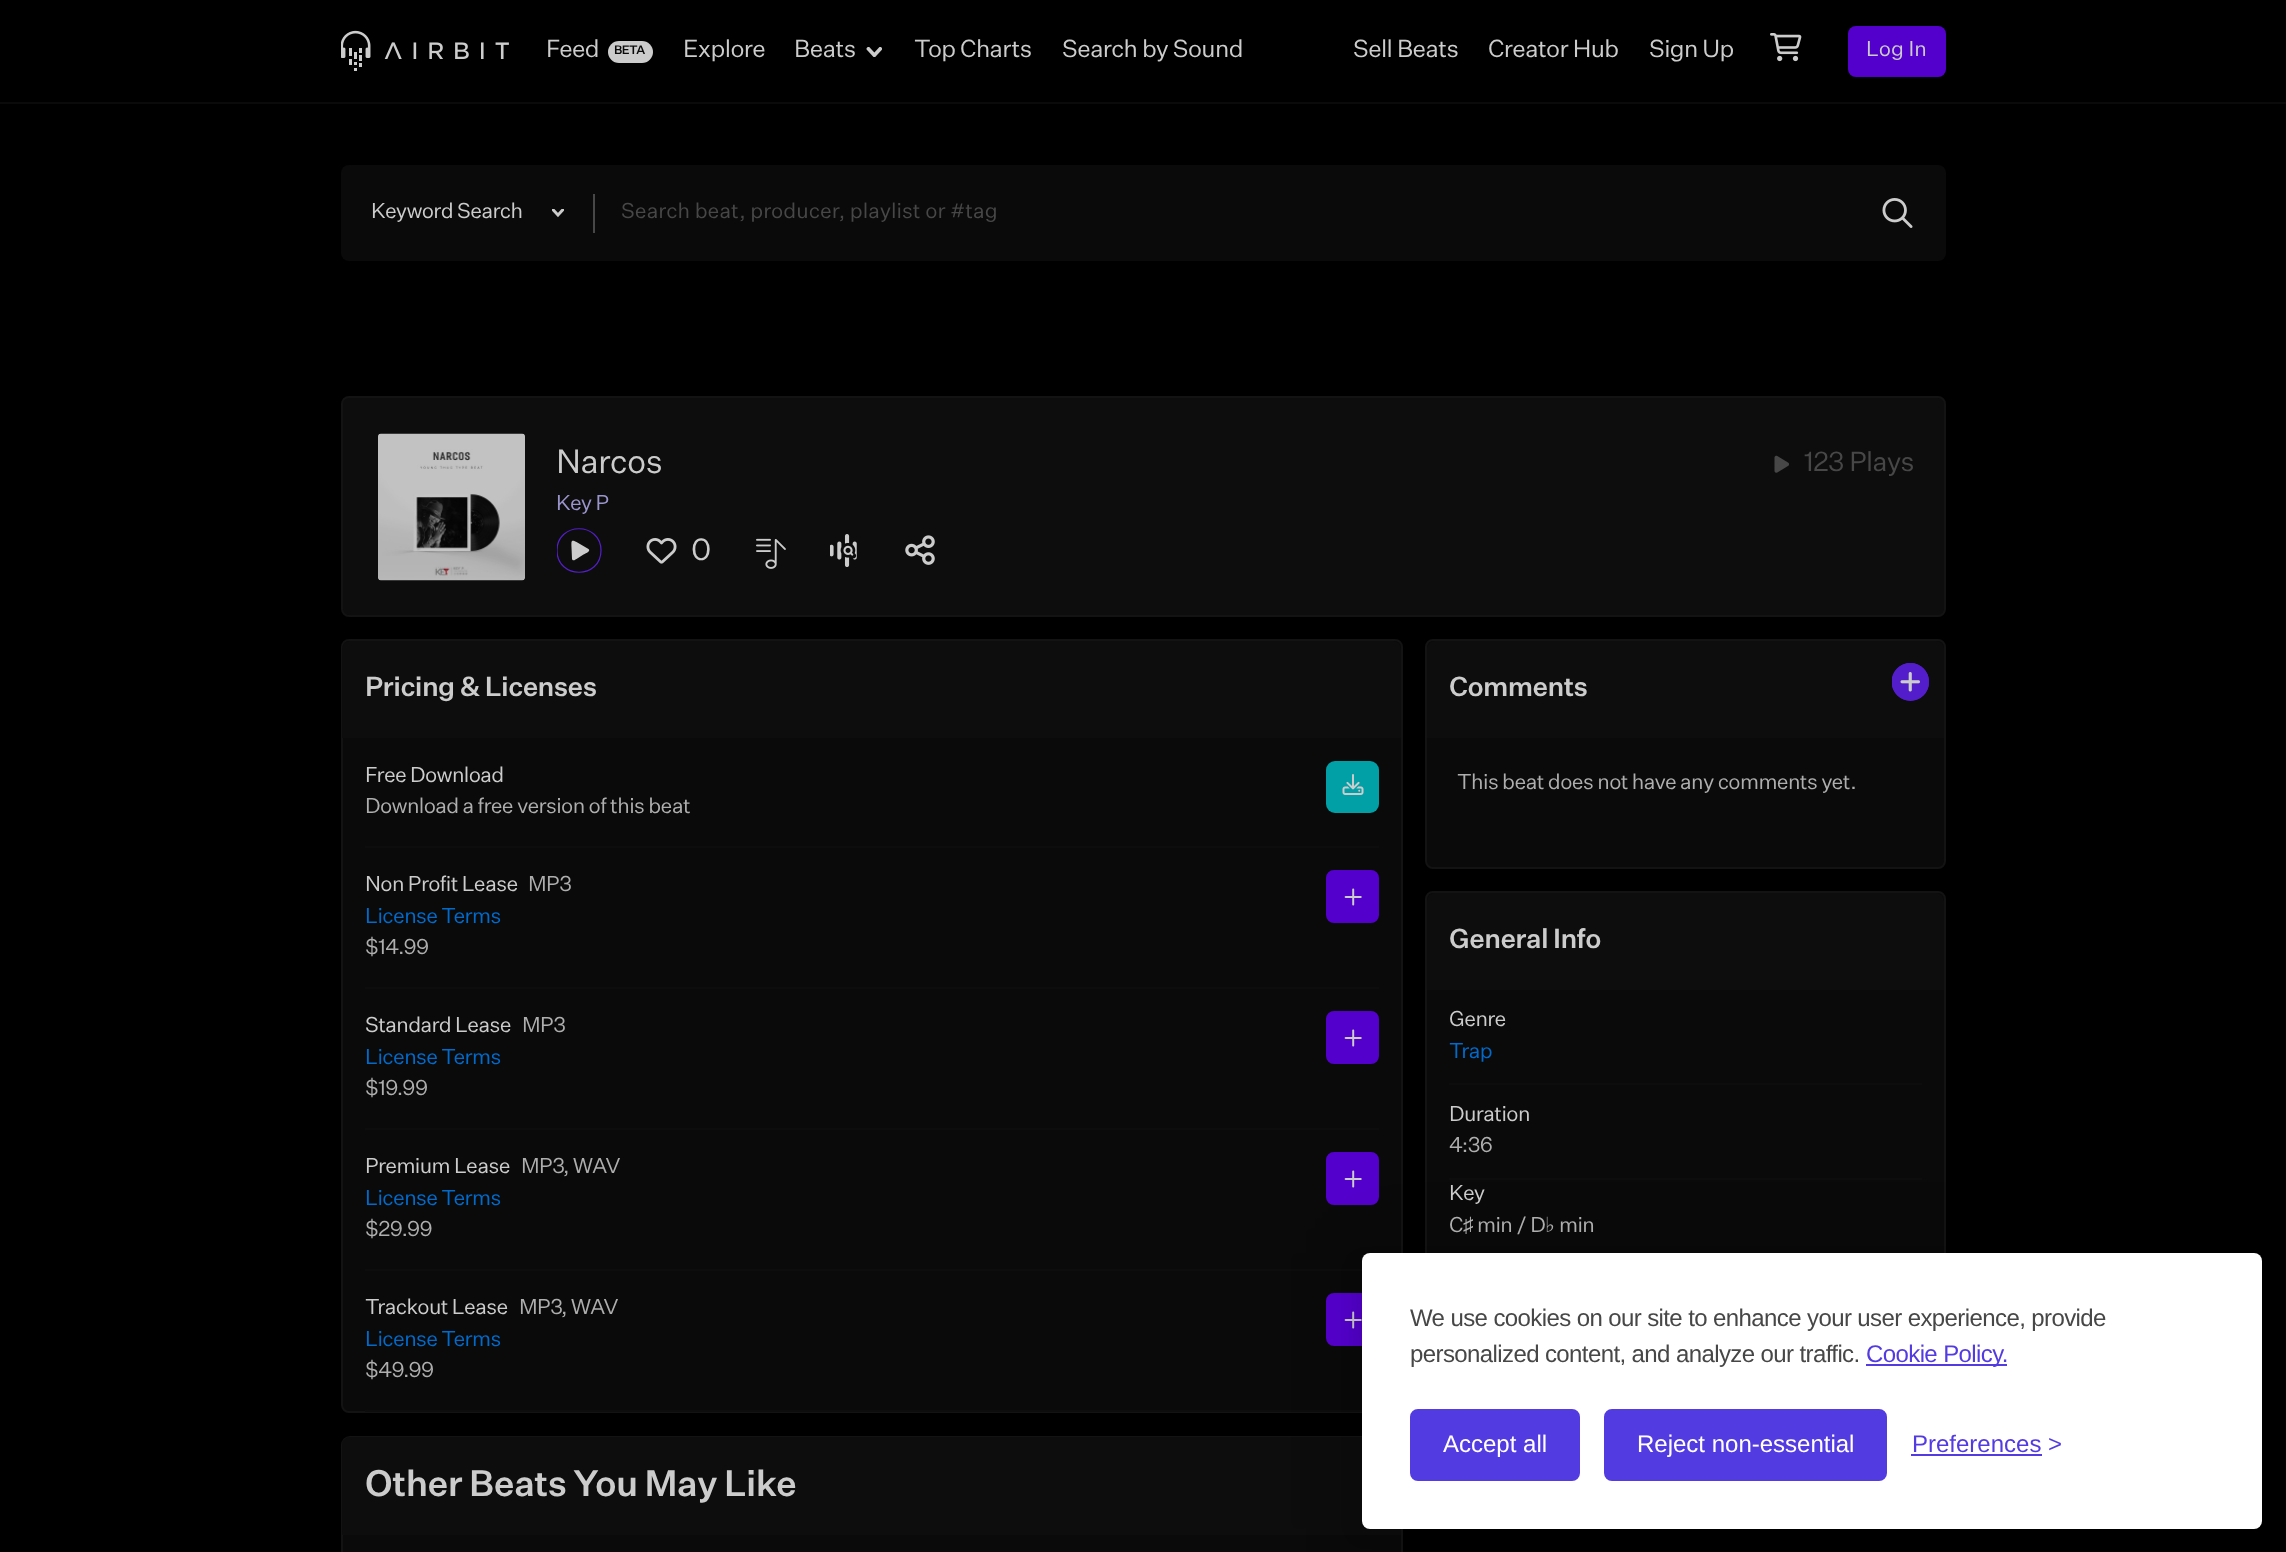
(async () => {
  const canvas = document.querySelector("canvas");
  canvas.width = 2286;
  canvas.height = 1552;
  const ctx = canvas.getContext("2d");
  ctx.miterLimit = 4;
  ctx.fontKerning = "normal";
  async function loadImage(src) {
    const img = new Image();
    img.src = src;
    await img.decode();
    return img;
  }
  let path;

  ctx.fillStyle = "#000000";
  ctx.fillRect(0, 0, 2286, 1552);
  ctx.fillStyle = "#0a0a0a";
  ctx.fillRect(0, 102, 2286, 2);
  ctx.drawImage(await loadImage("img/1.png"), 341, 30, 168, 41);
  ctx.fillStyle = "#cccccc";
  ctx.beginPath();
  ctx.roundRect(608, 41, 45, 22, 11);
  ctx.fill();
  ctx.drawImage(await loadImage("img/2.png"), 866, 47, 16, 10);
  ctx.drawImage(await loadImage("img/3.png"), 1770, 33, 32, 29);
  ctx.fillStyle = "#5400cc";
  ctx.beginPath();
  ctx.roundRect(1848, 26, 98, 51, 8);
  ctx.fill();
  ctx.fillStyle = "#0a0a0a";
  ctx.beginPath();
  ctx.roundRect(341, 165, 1605, 96, 8);
  ctx.fill();
  ctx.fillStyle = "#474747";
  ctx.fillRect(593, 194, 2, 39);
  ctx.drawImage(await loadImage("img/4.png"), 552, 209, 12, 9);
  ctx.drawImage(await loadImage("img/5.png"), 1882, 198, 31, 30);
  ctx.fillStyle = "#0d0d0d";
  ctx.beginPath();
  ctx.roundRect(342, 397, 1603, 219, 7);
  ctx.fill();
  ctx.strokeStyle = "#141313";
  ctx.lineWidth = 2;
  ctx.stroke();
  ctx.drawImage(await loadImage("img/6.png"), 378, 433, 147, 148);
  ctx.drawImage(await loadImage("img/7.png"), 1774, 455, 15, 18);
  ctx.save();
  ctx.beginPath();
  ctx.rect(557, 528, 45, 45);
  ctx.clip();
  path = new Path2D("M601 550.5C601 579.5 557 579.5 557 550.5C557 521.5 601 521.5 601 550.5Z");
  ctx.strokeStyle = "#541fcc";
  ctx.lineWidth = 1.2;
  ctx.stroke(path);
  ctx.restore();
  ctx.fillStyle = "#cccccc";
  path = new Path2D("M588.5 549C591 551 586.5 553 583.5 554.5L576.5 559C575.5 559.5 574 561 572.5 560L572 559L571.5 547.5C571.5 541.5 570.5 539 576.5 542Z");
  ctx.fill(path);
  ctx.drawImage(await loadImage("img/8.png"), 646, 538, 31, 26);
  ctx.drawImage(await loadImage("img/9.png"), 756, 538, 30, 31);
  ctx.drawImage(await loadImage("img/10.png"), 830, 534, 27, 33);
  ctx.drawImage(await loadImage("img/11.png"), 905, 535, 30, 30);
  ctx.fillStyle = "#0a0a0a";
  ctx.beginPath();
  ctx.roundRect(342, 640, 1060, 772, 7);
  ctx.fill();
  ctx.stroke();
  ctx.fillStyle = "#0d0d0d";
  ctx.beginPath();
  ctx.roundRect(342, 641, 1059, 97, [8, 8, 0, 0]);
  ctx.fill();
  ctx.fillRect(365, 846, 1014, 2);
  ctx.fillStyle = "#00a0a6";
  ctx.beginPath();
  ctx.roundRect(1326, 761, 53, 52, 9);
  ctx.fill();
  ctx.drawImage(await loadImage("img/12.png"), 1342, 774, 22, 21);
  ctx.fillStyle = "#0d0d0d";
  ctx.fillRect(365, 987, 1014, 2);
  ctx.fillStyle = "#5400cc";
  ctx.beginPath();
  ctx.roundRect(1327, 871, 51, 51, 7);
  ctx.fill();
  ctx.strokeStyle = "#5400cc";
  ctx.stroke();
  ctx.drawImage(await loadImage("img/13.png"), 1344, 888, 18, 18);
  ctx.fillStyle = "#0d0d0d";
  ctx.fillRect(365, 1128, 1014, 2);
  ctx.fillStyle = "#5400cc";
  ctx.beginPath();
  ctx.roundRect(1327, 1012, 51, 51, 7);
  ctx.fill();
  ctx.stroke();
  ctx.drawImage(await loadImage("img/13.png"), 1344, 1029, 18, 18);
  ctx.fillStyle = "#0d0d0d";
  ctx.fillRect(365, 1269, 997, 2);
  ctx.fillStyle = "#5400cc";
  ctx.beginPath();
  ctx.roundRect(1327, 1153, 51, 51, 7);
  ctx.fill();
  ctx.stroke();
  ctx.drawImage(await loadImage("img/13.png"), 1344, 1170, 18, 18);
  ctx.fillStyle = "#0d0d0d";
  ctx.fillRect(365, 1410, 997, 2);
  ctx.fillStyle = "#5400cc";
  ctx.beginPath();
  ctx.roundRect(1327, 1294, 51, 51, 7);
  ctx.fill();
  ctx.stroke();
  ctx.drawImage(await loadImage("img/13.png"), 1344, 1311, 18, 18);
  ctx.fillStyle = "#0a0a0a";
  ctx.beginPath();
  ctx.roundRect(342, 1437, 1060, 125, 8);
  ctx.fill();
  ctx.strokeStyle = "#141313";
  ctx.stroke();
  ctx.fillStyle = "#0d0d0d";
  ctx.beginPath();
  ctx.roundRect(342, 1437, 1059, 98, [8, 8, 0, 0]);
  ctx.fill();
  ctx.fillStyle = "#0a0a0a";
  ctx.beginPath();
  ctx.roundRect(1426, 640, 519, 228, 7);
  ctx.fill();
  ctx.stroke();
  ctx.fillStyle = "#0d0d0d";
  ctx.beginPath();
  ctx.roundRect(1427, 641, 517, 97, [8, 8, 0, 0]);
  ctx.fill();
  ctx.fillStyle = "#541fcc";
  ctx.beginPath();
  ctx.roundRect(1892, 663, 37, 38, 18.5);
  ctx.fill();
  ctx.drawImage(await loadImage("img/14.png"), 1892, 663, 37, 38);
  ctx.fillStyle = "#0a0a0a";
  ctx.beginPath();
  ctx.roundRect(1426, 892, 519, 445, 7);
  ctx.fill();
  ctx.stroke();
  ctx.fillStyle = "#0d0d0d";
  ctx.beginPath();
  ctx.roundRect(1427, 893, 517, 97, [8, 8, 0, 0]);
  ctx.fill();
  ctx.fillRect(1449, 1083, 473, 2);
  ctx.fillRect(1449, 1178, 473, 2);
  ctx.fillStyle = "rgba(0, 0, 0, 0.1)";
  ctx.filter = "blur(37.5px)";
  ctx.beginPath();
  ctx.roundRect(1362, 1253, 900, 276, 8);
  ctx.fill();
  ctx.filter = "none";
  ctx.fillStyle = "rgba(0, 0, 0, 0.07)";
  ctx.filter = "blur(7.5px)";
  ctx.beginPath();
  ctx.roundRect(1355, 1260, 900, 276, 8);
  ctx.fill();
  ctx.filter = "none";
  ctx.fillStyle = "#ffffff";
  ctx.beginPath();
  ctx.roundRect(1362, 1253, 900, 276, 8);
  ctx.fill();
  ctx.fillStyle = "#533be2";
  ctx.fillRect(1866, 1364, 141, 2);
  ctx.beginPath();
  ctx.roundRect(1411.5, 1410.5, 167, 69, 6.5);
  ctx.fill();
  ctx.strokeStyle = "#533be2";
  ctx.lineWidth = 3;
  ctx.stroke();
  ctx.beginPath();
  ctx.roundRect(1605.5, 1410.5, 280, 69, 6.5);
  ctx.fill();
  ctx.stroke();
  ctx.fillRect(1911, 1454, 131, 2);
  ctx.letterSpacing = "-0.6px";
  ctx.font = "24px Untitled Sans";
  ctx.fillStyle = "#cccccc";
  ctx.fillText("Feed", 546, 57);
  ctx.font = "500 12px Untitled Sans";
  ctx.fillStyle = "#0a0a0a";
  ctx.fillText("BETA", 614, 54);
  ctx.font = "24px Untitled Sans";
  ctx.fillStyle = "#cccccc";
  for (const [text, x, y] of [
    ["Explore", 683, 57],
    ["Beats", 794, 57],
    ["Top Charts", 914, 57],
    ["Search by Sound", 1062, 57],
    ["Sell Beats", 1353, 57],
    ["Creator Hub", 1488, 57],
    ["Sign Up", 1649, 57],
  ]) {
    ctx.fillText(text, x, y);
  }
  ctx.letterSpacing = "0px";
  ctx.font = "21px Untitled Sans";
  ctx.fillText("Log In", 1866, 56);
  ctx.letterSpacing = "-0.6px";
  ctx.fillText("Keyword Search", 371, 218);
  ctx.letterSpacing = "0px";
  ctx.fillStyle = "#474747";
  ctx.fillText("Search beat, producer, playlist or #tag", 621, 218);
  ctx.letterSpacing = "-0.6px";
  ctx.font = "33px Untitled Sans";
  ctx.fillStyle = "#cccccc";
  ctx.fillText("Narcos", 556, 473);
  ctx.font = "27px Untitled Sans";
  ctx.fillStyle = "#474747";
  ctx.fillText("123 Plays", 1804, 471);
  ctx.font = "21px Untitled Sans";
  ctx.fillStyle = "#9a94cc";
  ctx.fillText("Key P", 556, 510);
  ctx.font = "30px Untitled Sans";
  ctx.fillStyle = "#cccccc";
  ctx.fillText("0", 691, 560);
  ctx.font = "500 27px Untitled Sans";
  ctx.fillText("Pricing & Licenses", 365, 696);
  ctx.font = "21px Untitled Sans";
  ctx.fillText("Free Download", 365, 782);
  ctx.fillStyle = "#aeaeae";
  ctx.fillText("Download a free version of this beat", 365, 813);
  ctx.fillStyle = "#cccccc";
  ctx.fillText("Non Profit Lease", 365, 891);
  ctx.fillStyle = "#aeaeae";
  ctx.fillText("MP3", 528, 891);
  ctx.fillStyle = "#006bcc";
  ctx.fillText("License Terms", 365, 923);
  ctx.fillStyle = "#aeaeae";
  ctx.fillText("$14.99", 365, 954);
  ctx.fillStyle = "#cccccc";
  ctx.fillText("Standard Lease", 365, 1032);
  ctx.fillStyle = "#aeaeae";
  ctx.fillText("MP3", 522, 1032);
  ctx.fillStyle = "#006bcc";
  ctx.fillText("License Terms", 365, 1064);
  ctx.fillStyle = "#aeaeae";
  ctx.fillText("$19.99", 365, 1095);
  ctx.fillStyle = "#cccccc";
  ctx.fillText("Premium Lease", 365, 1173);
  ctx.fillStyle = "#aeaeae";
  ctx.fillText("MP3", 521, 1173);
  ctx.fillText(", WAV", 563, 1173);
  ctx.fillStyle = "#006bcc";
  ctx.fillText("License Terms", 365, 1205);
  ctx.fillStyle = "#aeaeae";
  ctx.fillText("$29.99", 365, 1236);
  ctx.fillStyle = "#cccccc";
  ctx.fillText("Trackout Lease", 365, 1314);
  ctx.fillStyle = "#aeaeae";
  ctx.fillText("MP3", 519, 1314);
  ctx.fillText(", WAV", 561, 1314);
  ctx.fillStyle = "#006bcc";
  ctx.fillText("License Terms", 365, 1346);
  ctx.fillStyle = "#aeaeae";
  ctx.fillText("$49.99", 365, 1377);
  ctx.font = "500 36px Untitled Sans";
  ctx.fillStyle = "#cccccc";
  ctx.fillText("Other Beats You May Like", 365, 1496);
  ctx.font = "500 27px Untitled Sans";
  ctx.fillText("Comments", 1449, 696);
  ctx.font = "21px Untitled Sans";
  ctx.fillStyle = "#aeaeae";
  ctx.fillText("This beat does not have any comments yet.", 1457, 789);
  ctx.font = "500 27px Untitled Sans";
  ctx.fillStyle = "#cccccc";
  ctx.fillText("General Info", 1449, 948);
  ctx.font = "21px Untitled Sans";
  ctx.fillText("Genre", 1449, 1026);
  ctx.fillStyle = "#006bcc";
  ctx.fillText("Trap", 1449, 1058);
  ctx.fillStyle = "#cccccc";
  ctx.fillText("Duration", 1449, 1121);
  ctx.fillStyle = "#aeaeae";
  ctx.fillText("4:36", 1449, 1152);
  ctx.fillStyle = "#cccccc";
  ctx.fillText("Key", 1449, 1200);
  ctx.fillStyle = "#aeaeae";
  ctx.fillText("C", 1449, 1232);
  ctx.font = "21px Liberation Sans";
  ctx.fillText("♯", 1463, 1232);
  ctx.font = "21px Untitled Sans";
  ctx.fillText("min / D", 1477, 1232);
  ctx.font = "21px DejaVu Sans";
  ctx.fillText("♭", 1545, 1232);
  ctx.font = "21px Untitled Sans";
  ctx.fillText("min", 1559, 1232);
  ctx.font = "24px Liberation Sans";
  ctx.fillStyle = "#474747";
  ctx.fillText("We use cookies on our site to enhance your user experience, provide", 1410, 1326);
  ctx.fillText("personalized content, and analyze our traffic.", 1410, 1362);
  ctx.fillStyle = "#533be2";
  ctx.fillText("Cookie Policy.", 1866, 1362);
  ctx.letterSpacing = "0px";
  ctx.fillStyle = "#ffffff";
  ctx.fillText("Accept all", 1443, 1452);
  ctx.fillText("Reject non-essential", 1637, 1452);
  ctx.fillStyle = "#533be2";
  ctx.fillText("Preferences", 1912, 1452);
  ctx.fillText(">", 2048, 1452);
})();
